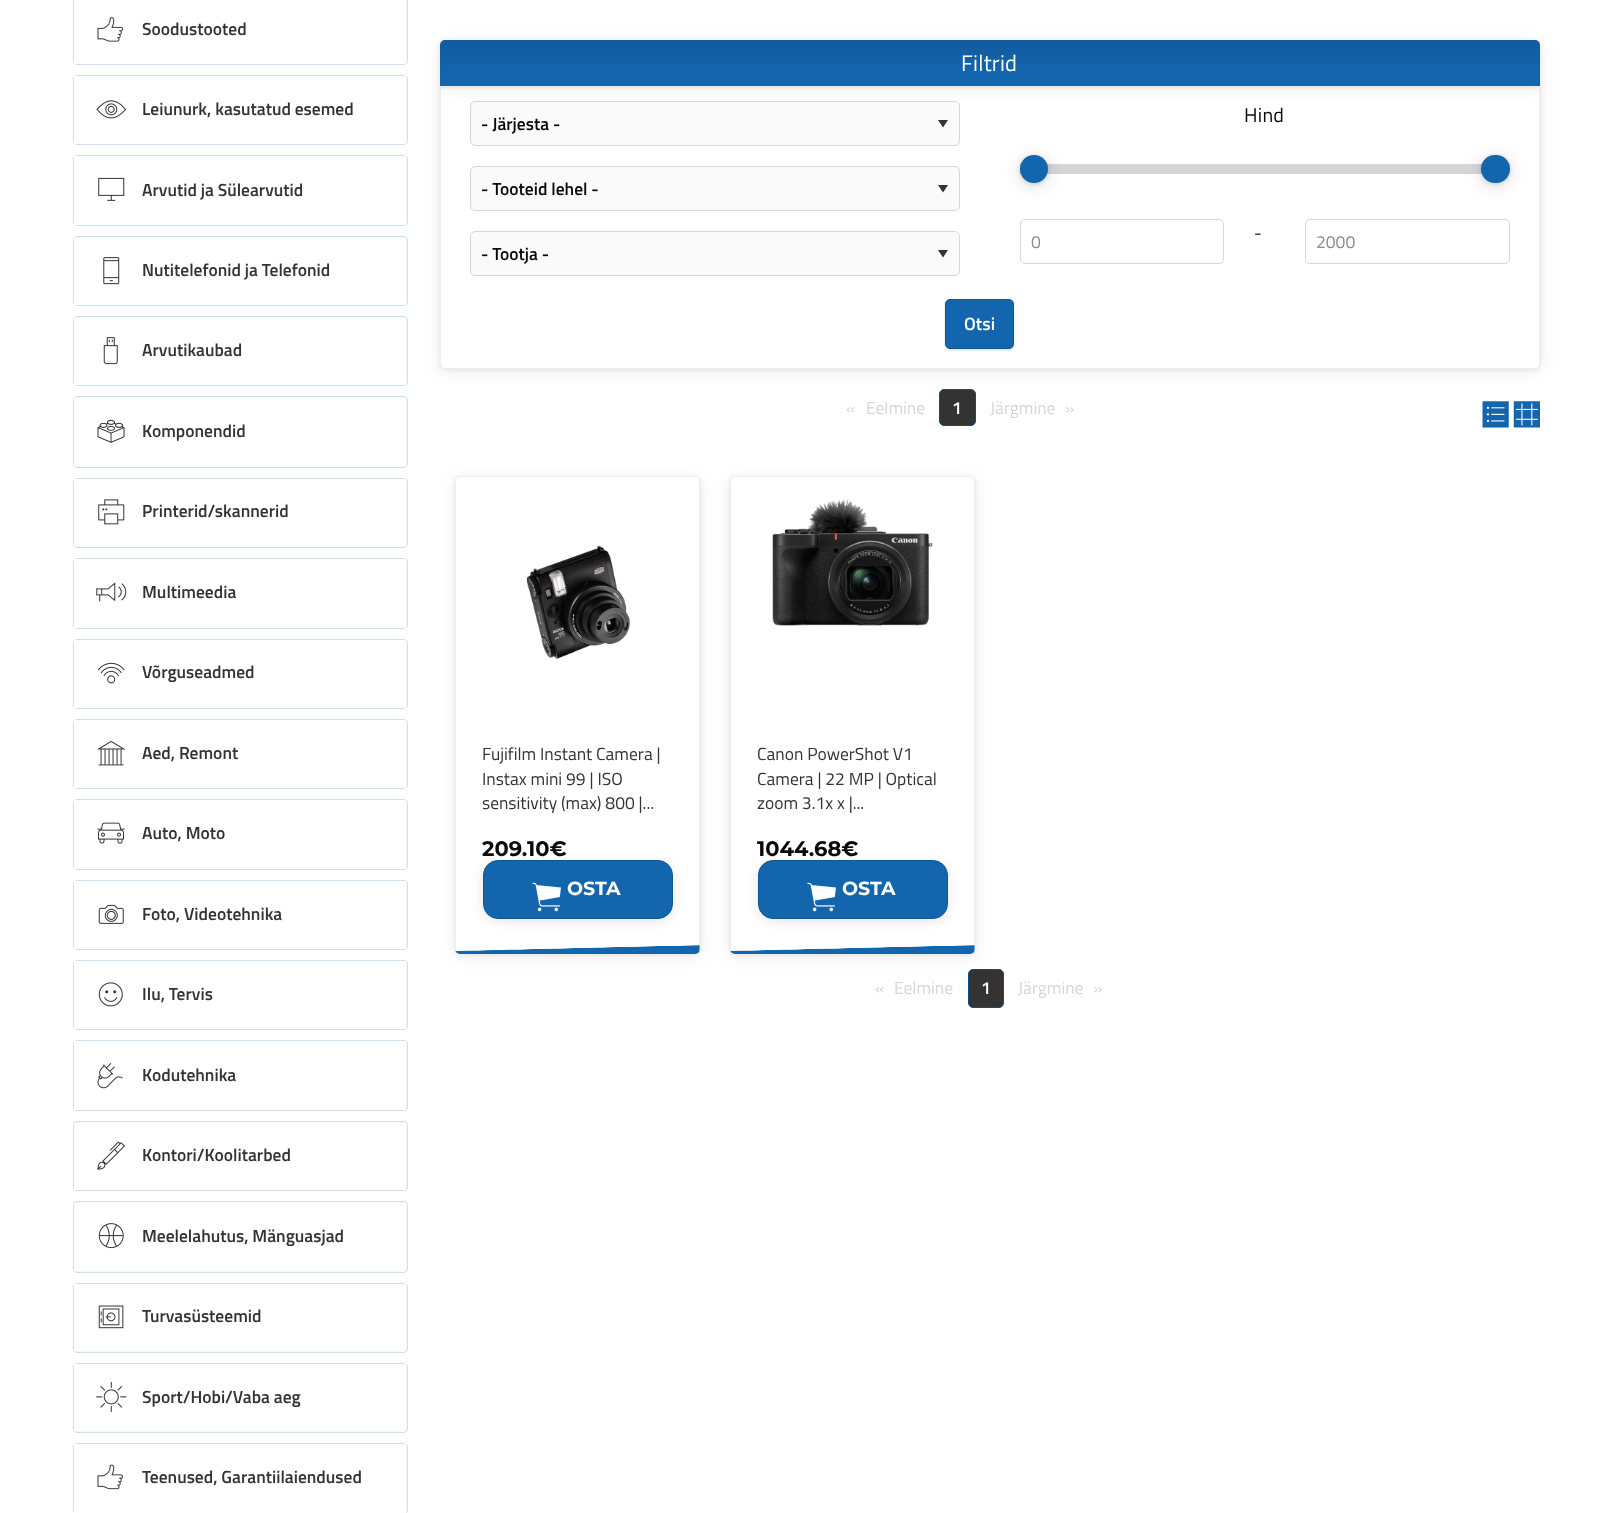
(async () => {
  const canvas = document.querySelector("canvas");
  canvas.width = 1603;
  canvas.height = 1513;
  const ctx = canvas.getContext("2d");
  ctx.miterLimit = 4;
  ctx.fontKerning = "normal";
  async function loadImage(src) {
    const img = new Image();
    img.src = src;
    await img.decode();
    return img;
  }
  let gradient, path;

  ctx.fillStyle = "#ffffff";
  ctx.fillRect(0, 0, 1603, 1513);
  ctx.fillStyle = "#f4f8fb";
  ctx.beginPath();
  ctx.roundRect(73.5, -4.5, 334, 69, 3.5);
  ctx.fill();
  ctx.strokeStyle = "#cfe0ef";
  ctx.stroke();
  ctx.fillStyle = "#ffffff";
  ctx.fillRect(74, 0, 332, 64);
  ctx.drawImage(await loadImage("img/1.png"), 97, 17, 26, 25);
  ctx.fillStyle = "#f4f8fb";
  ctx.beginPath();
  ctx.roundRect(73.5, 75.5, 334, 69, 3.5);
  ctx.fill();
  ctx.stroke();
  ctx.fillStyle = "#ffffff";
  ctx.fillRect(74, 76, 332, 68);
  ctx.drawImage(await loadImage("img/2.png"), 96, 100, 31, 19);
  ctx.fillStyle = "#f4f8fb";
  ctx.beginPath();
  ctx.roundRect(73.5, 155.5, 334, 70, 3.5);
  ctx.fill();
  ctx.stroke();
  ctx.fillStyle = "#ffffff";
  ctx.fillRect(74, 156, 332, 69);
  ctx.drawImage(await loadImage("img/3.png"), 98, 177, 27, 24);
  ctx.fillStyle = "#f4f8fb";
  ctx.beginPath();
  ctx.roundRect(73.5, 236.5, 334, 69, 3.5);
  ctx.fill();
  ctx.stroke();
  ctx.fillStyle = "#ffffff";
  ctx.fillRect(74, 238, 332, 67);
  ctx.drawImage(await loadImage("img/4.png"), 103, 257, 17, 28);
  ctx.fillStyle = "#f4f8fb";
  ctx.beginPath();
  ctx.roundRect(73.5, 316.5, 334, 69, 3.5);
  ctx.fill();
  ctx.stroke();
  ctx.fillStyle = "#ffffff";
  ctx.fillRect(74, 318, 332, 67);
  ctx.drawImage(await loadImage("img/5.png"), 103, 337, 15, 28);
  ctx.fillStyle = "#f4f8fb";
  ctx.beginPath();
  ctx.roundRect(73.5, 396.5, 334, 71, 3.5);
  ctx.fill();
  ctx.stroke();
  ctx.fillStyle = "#ffffff";
  ctx.fillRect(74, 398, 332, 68);
  ctx.drawImage(await loadImage("img/6.png"), 97, 419, 28, 24);
  ctx.fillStyle = "#f4f8fb";
  ctx.beginPath();
  ctx.roundRect(73.5, 478.5, 334, 69, 3.5);
  ctx.fill();
  ctx.stroke();
  ctx.fillStyle = "#ffffff";
  ctx.fillRect(74, 479, 332, 67);
  ctx.drawImage(await loadImage("img/7.png"), 98, 499, 27, 26);
  ctx.fillStyle = "#f4f8fb";
  ctx.beginPath();
  ctx.roundRect(73.5, 558.5, 334, 70, 3.5);
  ctx.fill();
  ctx.stroke();
  ctx.fillStyle = "#ffffff";
  ctx.fillRect(74, 559, 332, 69);
  ctx.drawImage(await loadImage("img/8.png"), 96, 582, 31, 20);
  ctx.fillStyle = "#f4f8fb";
  ctx.beginPath();
  ctx.roundRect(73.5, 639.5, 334, 69, 3.5);
  ctx.fill();
  ctx.stroke();
  ctx.fillStyle = "#ffffff";
  ctx.fillRect(74, 640, 332, 68);
  ctx.drawImage(await loadImage("img/9.png"), 97, 662, 28, 22);
  ctx.fillStyle = "#f4f8fb";
  ctx.beginPath();
  ctx.roundRect(73.5, 719.5, 334, 69, 3.5);
  ctx.fill();
  ctx.stroke();
  ctx.fillStyle = "#ffffff";
  ctx.fillRect(74, 720, 332, 68);
  ctx.drawImage(await loadImage("img/10.png"), 97, 740, 29, 26);
  ctx.fillStyle = "#f4f8fb";
  ctx.beginPath();
  ctx.roundRect(73.5, 799.5, 334, 70, 3.5);
  ctx.fill();
  ctx.stroke();
  ctx.fillStyle = "#ffffff";
  ctx.fillRect(74, 800, 332, 69);
  ctx.drawImage(await loadImage("img/11.png"), 97, 822, 28, 22);
  ctx.fillStyle = "#f4f8fb";
  ctx.beginPath();
  ctx.roundRect(73.5, 880.5, 334, 69, 3.5);
  ctx.fill();
  ctx.stroke();
  ctx.fillStyle = "#ffffff";
  ctx.fillRect(74, 881, 332, 68);
  ctx.drawImage(await loadImage("img/12.png"), 98, 904, 26, 20);
  ctx.fillStyle = "#f4f8fb";
  ctx.beginPath();
  ctx.roundRect(73.5, 960.5, 334, 69, 3.5);
  ctx.fill();
  ctx.stroke();
  ctx.fillStyle = "#ffffff";
  ctx.fillRect(74, 961, 332, 68);
  ctx.drawImage(await loadImage("img/13.png"), 98, 982, 25, 25);
  ctx.fillStyle = "#f4f8fb";
  ctx.beginPath();
  ctx.roundRect(73.5, 1040.5, 334, 70, 3.5);
  ctx.fill();
  ctx.stroke();
  ctx.fillStyle = "#ffffff";
  ctx.fillRect(74, 1041, 332, 69);
  ctx.drawImage(await loadImage("img/14.png"), 97, 1063, 26, 26);
  ctx.fillStyle = "#f4f8fb";
  ctx.beginPath();
  ctx.roundRect(73.5, 1121.5, 334, 69, 3.5);
  ctx.fill();
  ctx.stroke();
  ctx.fillStyle = "#ffffff";
  ctx.fillRect(74, 1123, 332, 67);
  ctx.drawImage(await loadImage("img/15.png"), 97, 1141, 28, 29);
  ctx.fillStyle = "#f4f8fb";
  ctx.beginPath();
  ctx.roundRect(73.5, 1201.5, 334, 71, 3.5);
  ctx.fill();
  ctx.stroke();
  ctx.fillStyle = "#ffffff";
  ctx.fillRect(74, 1203, 332, 68);
  ctx.drawImage(await loadImage("img/16.png"), 98, 1223, 26, 26);
  ctx.fillStyle = "#f4f8fb";
  ctx.beginPath();
  ctx.roundRect(73.5, 1283.5, 334, 69, 3.5);
  ctx.fill();
  ctx.stroke();
  ctx.fillStyle = "#ffffff";
  ctx.fillRect(74, 1284, 332, 67);
  ctx.drawImage(await loadImage("img/17.png"), 98, 1305, 26, 24);
  ctx.fillStyle = "#f4f8fb";
  ctx.beginPath();
  ctx.roundRect(73.5, 1363.5, 334, 69, 3.5);
  ctx.fill();
  ctx.stroke();
  ctx.fillStyle = "#ffffff";
  ctx.fillRect(74, 1364, 332, 67);
  ctx.drawImage(await loadImage("img/18.png"), 96, 1381, 31, 31);
  ctx.fillStyle = "#f4f8fb";
  ctx.beginPath();
  ctx.roundRect(73.5, 1443.5, 334, 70, 3.5);
  ctx.fill();
  ctx.stroke();
  ctx.fillStyle = "#ffffff";
  ctx.fillRect(74, 1444, 332, 69);
  ctx.drawImage(await loadImage("img/19.png"), 97, 1464, 26, 26);
  ctx.fillStyle = "#333333";
  ctx.beginPath();
  ctx.roundRect(939.5, 389.5, 36, 36, 4.5);
  ctx.fill();
  ctx.strokeStyle = "#0e4e84";
  ctx.stroke();
  ctx.fillStyle = "rgba(0, 0, 0, 0.07)";
  ctx.filter = "blur(9px)";
  ctx.beginPath();
  ctx.roundRect(440, 43, 1100, 328, 5);
  ctx.fill();
  ctx.filter = "none";
  ctx.fillStyle = "rgba(0, 0, 0, 0.08)";
  ctx.filter = "blur(2px)";
  ctx.beginPath();
  ctx.roundRect(440, 41, 1100, 329, 5);
  ctx.fill();
  ctx.filter = "none";
  ctx.fillStyle = "#ffffff";
  ctx.beginPath();
  ctx.roundRect(440, 40, 1100, 329, 5);
  ctx.fill();
  ctx.beginPath();
  ctx.roundRect(440.5, 40.5, 1099, 328, 4.5);
  ctx.strokeStyle = "rgba(19, 102, 174, 0.1)";
  ctx.stroke();
  ctx.save();
  ctx.beginPath();
  ctx.roundRect(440, 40, 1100, 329, 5);
  ctx.clip();
  ctx.fillStyle = "rgba(0, 0, 0, 0.07)";
  ctx.filter = "blur(9px)";
  ctx.beginPath();
  ctx.rect(440, 43, 1100, 46);
  ctx.fill();
  ctx.filter = "none";
  ctx.restore();
  ctx.save();
  ctx.beginPath();
  ctx.rect(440, 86, 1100, 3);
  ctx.clip();
  ctx.fillStyle = "rgba(0, 0, 0, 0.08)";
  ctx.filter = "blur(2px)";
  ctx.beginPath();
  ctx.rect(440, 41, 1100, 47);
  ctx.fill();
  ctx.filter = "none";
  ctx.restore();
  gradient = ctx.createLinearGradient(990, 40, 990, 86);
  gradient.addColorStop(0, "#115c9d");
  gradient.addColorStop(0.75, "#1366ae");
  ctx.fillStyle = gradient;
  ctx.beginPath();
  ctx.roundRect(440, 40, 1100, 46, [5, 5, 0, 0]);
  ctx.fill();
  ctx.fillStyle = "rgba(19, 102, 174, 0.1)";
  path = new Path2D("M440 45V86H1540V45C1540 44 1540 43 1539 42V85H441V42ZM445 40L442 41H1538L1535 40Z");
  ctx.fill(path, "evenodd");
  ctx.fillStyle = "#fafafa";
  ctx.beginPath();
  ctx.roundRect(470, 101, 490, 45, 5);
  ctx.fill();
  ctx.fillStyle = "#333333";
  path = new Path2D("M938 120H948L943 127.5Z");
  ctx.fill(path);
  ctx.beginPath();
  ctx.roundRect(470.5, 101.5, 489, 44, 4.5);
  ctx.strokeStyle = "#d6d6d6";
  ctx.stroke();
  ctx.fillStyle = "#fafafa";
  ctx.beginPath();
  ctx.roundRect(470, 166, 490, 45, 5);
  ctx.fill();
  ctx.fillStyle = "#333333";
  path = new Path2D("M938 185H948L943 192.5Z");
  ctx.fill(path);
  ctx.beginPath();
  ctx.roundRect(470.5, 166.5, 489, 44, 4.5);
  ctx.stroke();
  ctx.fillStyle = "#fafafa";
  ctx.beginPath();
  ctx.roundRect(470, 231, 490, 45, 5);
  ctx.fill();
  ctx.fillStyle = "#333333";
  path = new Path2D("M938 250H948L943 257.5Z");
  ctx.fill(path);
  ctx.beginPath();
  ctx.roundRect(470.5, 231.5, 489, 44, 4.5);
  ctx.stroke();
  ctx.fillStyle = "#f7f7f7";
  ctx.fillRect(1509, 164, 1, 10);
  ctx.fillStyle = "#d6d6d6";
  ctx.fillRect(1020, 164, 462, 10);
  ctx.fillStyle = "rgba(0, 0, 0, 0.14)";
  ctx.filter = "blur(9px)";
  ctx.beginPath();
  ctx.roundRect(1020, 158, 28, 27, 13.5);
  ctx.fill();
  ctx.filter = "none";
  ctx.fillStyle = "rgba(0, 0, 0, 0.16)";
  ctx.filter = "blur(2px)";
  ctx.beginPath();
  ctx.roundRect(1020, 156, 28, 28, 14);
  ctx.fill();
  ctx.filter = "none";
  ctx.fillStyle = "#1366ae";
  ctx.beginPath();
  ctx.arc(1034, 169, 14, 0, Math.PI * 2);
  ctx.fill();
  ctx.beginPath();
  ctx.arc(1034, 169, 13.5, 0, Math.PI * 2);
  ctx.strokeStyle = "rgba(19, 102, 174, 0.1)";
  ctx.stroke();
  ctx.fillStyle = "rgba(0, 0, 0, 0.14)";
  ctx.filter = "blur(9px)";
  ctx.beginPath();
  ctx.roundRect(1481, 158, 29, 27, 13.5);
  ctx.fill();
  ctx.filter = "none";
  ctx.fillStyle = "rgba(0, 0, 0, 0.16)";
  ctx.filter = "blur(2px)";
  ctx.beginPath();
  ctx.roundRect(1481, 156, 29, 28, 14);
  ctx.fill();
  ctx.filter = "none";
  ctx.fillStyle = "#1366ae";
  ctx.beginPath();
  ctx.roundRect(1481, 155, 29, 28, 14);
  ctx.fill();
  ctx.beginPath();
  ctx.roundRect(1481.5, 155.5, 28, 27, 13.5);
  ctx.stroke();
  ctx.beginPath();
  ctx.roundRect(1020.5, 219.5, 203, 44, 4.5);
  ctx.strokeStyle = "#d6d6d6";
  ctx.stroke();
  ctx.beginPath();
  ctx.roundRect(1305.5, 219.5, 204, 44, 4.5);
  ctx.stroke();
  ctx.fillStyle = "rgba(0, 0, 0, 0.16)";
  ctx.filter = "blur(1px)";
  ctx.beginPath();
  ctx.roundRect(945, 300, 69, 50, 5);
  ctx.fill();
  ctx.filter = "none";
  ctx.fillStyle = "#1366ae";
  ctx.beginPath();
  ctx.roundRect(945.5, 299.5, 68, 49, 4.5);
  ctx.fill();
  ctx.strokeStyle = "#105794";
  ctx.stroke();
  ctx.drawImage(await loadImage("img/20.png"), 1482, 401, 27, 27);
  ctx.drawImage(await loadImage("img/21.png"), 1513, 401, 27, 27);
  ctx.fillStyle = "rgba(0, 0, 0, 0.07)";
  ctx.filter = "blur(9px)";
  ctx.beginPath();
  ctx.roundRect(455, 479, 245, 477, 5);
  ctx.fill();
  ctx.filter = "none";
  ctx.fillStyle = "rgba(0, 0, 0, 0.08)";
  ctx.filter = "blur(2px)";
  ctx.beginPath();
  ctx.roundRect(455, 478, 245, 477, 5);
  ctx.fill();
  ctx.filter = "none";
  ctx.fillStyle = "#ffffff";
  ctx.beginPath();
  ctx.roundRect(455, 476, 245, 478, 5);
  ctx.fill();
  ctx.drawImage(await loadImage("img/22.png"), 455, 945, 245, 9);
  ctx.beginPath();
  ctx.roundRect(455.5, 476.5, 244, 477, 4.5);
  ctx.strokeStyle = "rgba(19, 102, 174, 0.1)";
  ctx.stroke();
  ctx.drawImage(await loadImage("img/23.png"), 526, 545, 105, 114);
  ctx.fillStyle = "rgba(0, 0, 0, 0.1)";
  ctx.filter = "blur(6px)";
  ctx.beginPath();
  ctx.roundRect(483, 863, 190, 58, 15);
  ctx.fill();
  ctx.filter = "none";
  ctx.fillStyle = "#1366ae";
  ctx.beginPath();
  ctx.roundRect(483.5, 860.5, 189, 58, 14.5);
  ctx.fill();
  ctx.strokeStyle = "#105794";
  ctx.stroke();
  ctx.drawImage(await loadImage("img/24.png"), 532, 882, 29, 30);
  ctx.fillStyle = "rgba(0, 0, 0, 0.07)";
  ctx.filter = "blur(9px)";
  ctx.beginPath();
  ctx.roundRect(730, 479, 245, 477, 5);
  ctx.fill();
  ctx.filter = "none";
  ctx.fillStyle = "rgba(0, 0, 0, 0.08)";
  ctx.filter = "blur(2px)";
  ctx.beginPath();
  ctx.roundRect(730, 478, 245, 477, 5);
  ctx.fill();
  ctx.filter = "none";
  ctx.fillStyle = "#ffffff";
  ctx.beginPath();
  ctx.roundRect(730, 476, 245, 478, 5);
  ctx.fill();
  ctx.drawImage(await loadImage("img/22.png"), 730, 945, 245, 9);
  ctx.beginPath();
  ctx.roundRect(730.5, 476.5, 244, 477, 4.5);
  ctx.strokeStyle = "rgba(19, 102, 174, 0.1)";
  ctx.stroke();
  ctx.drawImage(await loadImage("img/25.png"), 772, 499, 161, 127);
  ctx.fillStyle = "rgba(0, 0, 0, 0.1)";
  ctx.filter = "blur(6px)";
  ctx.beginPath();
  ctx.roundRect(758, 863, 190, 58, 15);
  ctx.fill();
  ctx.filter = "none";
  ctx.fillStyle = "#1366ae";
  ctx.beginPath();
  ctx.roundRect(758.5, 860.5, 189, 58, 14.5);
  ctx.fill();
  ctx.strokeStyle = "#105794";
  ctx.stroke();
  ctx.drawImage(await loadImage("img/24.png"), 807, 882, 29, 30);
  ctx.fillStyle = "#333333";
  ctx.beginPath();
  ctx.roundRect(968.5, 969.5, 35, 38, 4.5);
  ctx.fill();
  ctx.strokeStyle = "#0e4e84";
  ctx.stroke();
  ctx.font = "600 17.5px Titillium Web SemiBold";
  for (const [text, x, y] of [
    ["Soodustooted", 142, 35],
    ["Leiunurk, kasutatud esemed", 142, 115],
    ["Arvutid ja Sülearvutid", 142, 196],
    ["Nutitelefonid ja Telefonid", 142, 276],
    ["Arvutikaubad", 142, 356],
    ["Komponendid", 142, 437],
    ["Printerid/skannerid", 142, 517],
    ["Multimeedia", 142, 598],
    ["Võrguseadmed", 142, 678],
    ["Aed, Remont", 142, 759],
    ["Auto, Moto", 142, 839],
    ["Foto, Videotehnika", 142, 920],
    ["Ilu, Tervis", 142, 1000],
    ["Kodutehnika", 142, 1081],
    ["Kontori/Koolitarbed", 142, 1161],
    ["Meelelahutus, Mänguasjad", 142, 1242],
    ["Turvasüsteemid", 142, 1322],
    ["Sport/Hobi/Vaba aeg", 142, 1403],
    ["Teenused, Garantiilaiendused", 142, 1483],
  ]) {
    ctx.fillText(text, x, y);
  }
  ctx.letterSpacing = "0.25px";
  ctx.font = "22.5px Titillium Web";
  ctx.fillStyle = "#ffffff";
  ctx.fillText("Filtrid", 961, 71);
  ctx.letterSpacing = "0px";
  ctx.font = "600 17.5px Titillium Web SemiBold";
  ctx.fillStyle = "#0a0a0a";
  for (const [text, x, y] of [
    ["- Järjesta -", 481, 130],
    ["- Tooteid lehel -", 481, 195],
    ["- Tootja -", 481, 260],
  ]) {
    ctx.fillText(text, x, y);
  }
  ctx.letterSpacing = "0.25px";
  ctx.font = "20px Titillium Web";
  ctx.fillText("Hind", 1244, 122);
  ctx.letterSpacing = "0px";
  ctx.font = "17.5px Titillium Web";
  ctx.fillText("-", 1254, 239);
  ctx.fillStyle = "#8a8a8a";
  ctx.fillText("0", 1031, 248);
  ctx.fillText("2000", 1316, 248);
  ctx.font = "600 18px Titillium Web SemiBold";
  ctx.fillStyle = "#ffffff";
  ctx.fillText("Otsi", 964, 330);
  ctx.font = "17.5px Titillium Web";
  ctx.fillStyle = "#d6d6d6";
  ctx.fillText("«", 846, 414);
  ctx.fillText("Eelmine", 866, 414);
  ctx.font = "600 17.5px Titillium Web SemiBold";
  ctx.fillStyle = "#ffffff";
  ctx.fillText("1", 952, 414);
  ctx.font = "17.5px Titillium Web";
  ctx.fillStyle = "#d6d6d6";
  ctx.fillText("Järgmine", 990, 414);
  ctx.fillText("»", 1065, 414);
  ctx.fillStyle = "#333333";
  for (const [text, x, y] of [
    ["Fujifilm Instant Camera |", 482, 760],
    ["Instax mini 99 | ISO", 482, 785],
    ["sensitivity (max) 800 |...", 482, 809],
  ]) {
    ctx.fillText(text, x, y);
  }
  ctx.font = "bold 21px Montserrat";
  ctx.fillStyle = "#0a0a0a";
  ctx.fillText("209.10€", 482, 856);
  ctx.font = "bold 19px Montserrat";
  ctx.fillStyle = "#ffffff";
  ctx.fillText("OSTA", 567, 895);
  ctx.font = "17.5px Titillium Web";
  ctx.fillStyle = "#333333";
  for (const [text, x, y] of [
    ["Canon PowerShot V1", 757, 760],
    ["Camera | 22 MP | Optical", 757, 785],
    ["zoom 3.1x x |...", 757, 809],
  ]) {
    ctx.fillText(text, x, y);
  }
  ctx.font = "bold 21px Montserrat";
  ctx.fillStyle = "#0a0a0a";
  ctx.fillText("1044.68€", 757, 856);
  ctx.font = "bold 19px Montserrat";
  ctx.fillStyle = "#ffffff";
  ctx.fillText("OSTA", 842, 895);
  ctx.font = "17.5px Titillium Web";
  ctx.fillStyle = "#d6d6d6";
  ctx.fillText("«", 875, 994);
  ctx.fillText("Eelmine", 894, 994);
  ctx.font = "600 17.5px Titillium Web SemiBold";
  ctx.fillStyle = "#ffffff";
  ctx.fillText("1", 981, 994);
  ctx.font = "17.5px Titillium Web";
  ctx.fillStyle = "#d6d6d6";
  ctx.fillText("Järgmine", 1018, 994);
  ctx.fillText("»", 1093, 994);
})();
